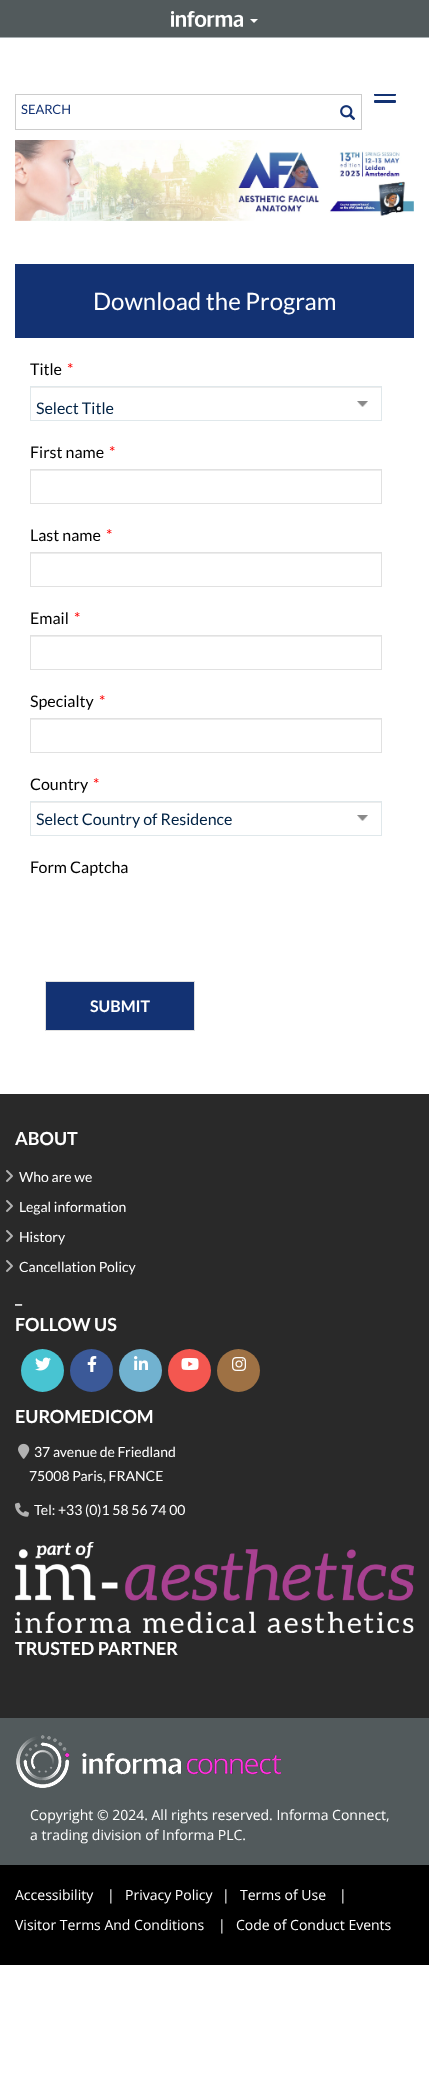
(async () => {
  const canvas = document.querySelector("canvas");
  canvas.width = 429;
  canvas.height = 2093;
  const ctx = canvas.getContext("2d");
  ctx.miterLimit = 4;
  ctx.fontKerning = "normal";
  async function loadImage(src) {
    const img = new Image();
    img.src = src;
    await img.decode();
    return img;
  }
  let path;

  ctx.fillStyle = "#ffffff";
  ctx.fillRect(0, 0, 429, 2093);
  ctx.fillStyle = "#525a5c";
  ctx.fillRect(0, 0, 429, 37);
  ctx.fillStyle = "#a5acaf";
  ctx.fillRect(0, 37, 429, 1);
  ctx.drawImage(await loadImage("img/1.png"), 171, 11, 72, 16);
  ctx.fillStyle = "#ffffff";
  path = new Path2D("M250 19H258L254 23Z");
  ctx.fill(path);
  ctx.fillStyle = "#133273";
  ctx.beginPath();
  ctx.roundRect(374, 93, 22, 3, 1);
  ctx.fill();
  ctx.beginPath();
  ctx.roundRect(374, 100, 22, 3, 1);
  ctx.fill();
  ctx.fillStyle = "#ffffff";
  ctx.fillRect(374, 93, 22, 1);
  ctx.strokeStyle = "#cccccc";
  ctx.strokeRect(15.5, 94.5, 346, 35);
  ctx.drawImage(await loadImage("img/2.png"), 340, 105, 16, 15);
  ctx.drawImage(await loadImage("img/3.png"), 15, 140, 399, 81);
  ctx.fillStyle = "#133273";
  ctx.fillRect(15, 264, 399, 74);
  ctx.drawImage(await loadImage("img/4.png"), 357, 401, 11, 6);
  ctx.fillStyle = "#ececec";
  ctx.fillRect(31, 387, 350, 1);
  ctx.strokeStyle = "#e0e8eb";
  ctx.strokeRect(30.5, 386.5, 351, 34);
  ctx.fillRect(31, 470, 350, 1);
  ctx.strokeStyle = "#e1e1e1";
  ctx.strokeRect(30.5, 469.5, 351, 34);
  ctx.fillRect(31, 553, 350, 1);
  ctx.strokeRect(30.5, 552.5, 351, 34);
  ctx.fillRect(31, 636, 350, 1);
  ctx.strokeRect(30.5, 635.5, 351, 34);
  ctx.fillRect(31, 719, 350, 1);
  ctx.strokeRect(30.5, 718.5, 351, 34);
  ctx.drawImage(await loadImage("img/5.png"), 357, 815, 11, 6);
  ctx.fillRect(31, 802, 350, 1);
  ctx.strokeStyle = "#e0e8eb";
  ctx.strokeRect(30.5, 801.5, 351, 34);
  ctx.fillStyle = "#133273";
  ctx.beginPath();
  ctx.rect(45.5, 981.5, 149, 49);
  ctx.fill();
  ctx.strokeStyle = "#e1e1e1";
  ctx.stroke();
  ctx.fillStyle = "#292929";
  ctx.fillRect(0, 1094, 429, 624);
  ctx.drawImage(await loadImage("img/6.png"), 6, 1170, 7, 12);
  ctx.drawImage(await loadImage("img/6.png"), 6, 1200, 7, 12);
  ctx.drawImage(await loadImage("img/6.png"), 6, 1230, 7, 12);
  ctx.drawImage(await loadImage("img/6.png"), 6, 1260, 7, 12);
  ctx.fillStyle = "#48c4d2";
  ctx.beginPath();
  ctx.arc(42.5, 1370.5, 21.5, 0, Math.PI * 2);
  ctx.fill();
  ctx.drawImage(await loadImage("img/7.png"), 35, 1357, 16, 14);
  ctx.fillStyle = "#3b5998";
  ctx.beginPath();
  ctx.arc(91.5, 1370.5, 21.5, 0, Math.PI * 2);
  ctx.fill();
  ctx.drawImage(await loadImage("img/8.png"), 87, 1356, 10, 16);
  ctx.fillStyle = "#71b2d0";
  ctx.beginPath();
  ctx.arc(140.5, 1370.5, 21.5, 0, Math.PI * 2);
  ctx.fill();
  ctx.drawImage(await loadImage("img/9.png"), 134, 1356, 14, 14);
  ctx.fillStyle = "#f45750";
  ctx.beginPath();
  ctx.arc(189.5, 1370.5, 21.5, 0, Math.PI * 2);
  ctx.fill();
  ctx.drawImage(await loadImage("img/10.png"), 181, 1358, 18, 12);
  ctx.fillStyle = "#9e7144";
  ctx.beginPath();
  ctx.arc(238.5, 1370.5, 21.5, 0, Math.PI * 2);
  ctx.fill();
  ctx.drawImage(await loadImage("img/11.png"), 232, 1357, 14, 14);
  ctx.drawImage(await loadImage("img/12.png"), 18, 1443, 12, 16);
  ctx.drawImage(await loadImage("img/13.png"), 15, 1502, 14, 15);
  ctx.drawImage(await loadImage("img/14.png"), 15, 1542, 399, 91);
  ctx.fillStyle = "#525a5c";
  ctx.fillRect(0, 1718, 429, 147);
  ctx.drawImage(await loadImage("img/15.png"), 16, 1735, 265, 53);
  ctx.fillStyle = "#000000";
  ctx.fillRect(0, 1865, 429, 100);
  ctx.font = "13px Lato";
  ctx.fillStyle = "#133273";
  ctx.fillText("SEARCH", 21, 114);
  ctx.font = "24px Lato";
  ctx.fillStyle = "#ffffff";
  ctx.fillText("Download the Program", 93, 310);
  ctx.font = "16px Lato";
  ctx.fillStyle = "#000000";
  ctx.fillText("Title", 30, 375);
  ctx.fillStyle = "#ff0000";
  ctx.fillText("*", 67, 375);
  ctx.fillStyle = "#002244";
  ctx.fillText("Select Title", 36, 414);
  ctx.fillStyle = "#000000";
  ctx.fillText("First name", 30, 458);
  ctx.fillStyle = "#ff0000";
  ctx.fillText("*", 109, 458);
  ctx.fillStyle = "#000000";
  ctx.fillText("Last name", 30, 541);
  ctx.fillStyle = "#ff0000";
  ctx.fillText("*", 106, 541);
  ctx.fillStyle = "#000000";
  ctx.fillText("Email", 30, 624);
  ctx.fillStyle = "#ff0000";
  ctx.fillText("*", 74, 624);
  ctx.fillStyle = "#000000";
  ctx.fillText("Specialty", 30, 707);
  ctx.fillStyle = "#ff0000";
  ctx.fillText("*", 99, 707);
  ctx.fillStyle = "#000000";
  ctx.fillText("Country", 30, 790);
  ctx.fillStyle = "#ff0000";
  ctx.fillText("*", 93, 790);
  ctx.fillStyle = "#002244";
  ctx.fillText("Select Country of Residence", 36, 825);
  ctx.fillStyle = "#000000";
  ctx.fillText("Form Captcha", 30, 873);
  ctx.font = "bold 16px Lato";
  ctx.fillStyle = "#ffffff";
  ctx.fillText("SUBMIT", 90, 1012);
  ctx.font = "bold 18px Lato";
  ctx.fillText("ABOUT", 15, 1145);
  ctx.font = "14px Lato";
  for (const [text, x, y] of [
    ["Who are we", 19, 1182],
    ["Legal information", 19, 1212],
    ["History", 19, 1242],
    ["Cancellation Policy", 19, 1272],
  ]) {
    ctx.fillText(text, x, y);
  }
  ctx.font = "bold 18px Lato";
  for (const [text, x, y] of [
    ["_", 15, 1303],
    ["FOLLOW US", 15, 1331],
    ["EUROMEDICOM", 15, 1423],
  ]) {
    ctx.fillText(text, x, y);
  }
  ctx.font = "14px Lato";
  for (const [text, x, y] of [
    ["37 avenue de Friedland", 34, 1457],
    ["75008 Paris, FRANCE", 29, 1481],
    ["Tel: +33 (0)1 58 56 74 00", 34, 1515],
  ]) {
    ctx.fillText(text, x, y);
  }
  ctx.font = "bold 18px Lato";
  ctx.fillText("TRUSTED PARTNER", 15, 1655);
  ctx.font = "14px Open Sans";
  for (const [text, x, y] of [
    ["Copyright © 2024. All rights reserved. Informa Connect,", 30, 1820],
    ["a trading division of Informa PLC.", 30, 1840],
    ["Accessibility", 15, 1900],
    ["|", 107, 1900],
    ["Privacy Policy", 125, 1900],
    ["|", 222, 1900],
    ["Terms of Use", 240, 1900],
    ["|", 339, 1900],
    ["Visitor Terms And Conditions", 15, 1930],
    ["|", 218, 1930],
    ["Code of Conduct Events", 236, 1930],
  ]) {
    ctx.fillText(text, x, y);
  }
})();
